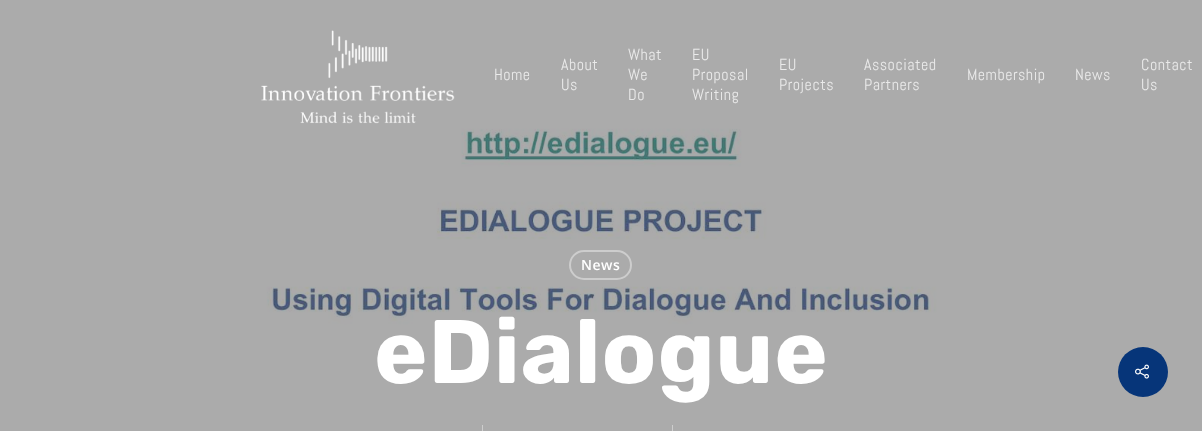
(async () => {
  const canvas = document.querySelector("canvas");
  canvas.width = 1202;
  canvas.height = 431;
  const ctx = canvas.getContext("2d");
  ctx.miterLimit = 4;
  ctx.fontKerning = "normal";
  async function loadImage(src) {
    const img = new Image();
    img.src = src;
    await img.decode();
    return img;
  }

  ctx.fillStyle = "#ffffff";
  ctx.fillRect(0, 0, 1202, 431);
  ctx.drawImage(await loadImage("img/2.png"), 0, 0, 1202, 431);
  ctx.drawImage(await loadImage("img/1.png"), 261, 30, 194, 94);
  ctx.beginPath();
  ctx.roundRect(570, 251, 61, 28, 14);
  ctx.strokeStyle = "#cdcdcd";
  ctx.lineWidth = 2;
  ctx.stroke();
  ctx.fillStyle = "#cdcdcd";
  ctx.fillRect(482, 425, 1, 6);
  ctx.fillRect(672, 425, 1, 6);
  ctx.fillStyle = "#063579";
  ctx.beginPath();
  ctx.arc(1143, 372, 25, 0, Math.PI * 2);
  ctx.fill();
  ctx.drawImage(await loadImage("img/3.png"), 1135, 364, 14, 15);
  ctx.letterSpacing = "0.5px";
  ctx.font = "16px Abel";
  ctx.fillStyle = "#eaeaea";
  for (const [text, x, y] of [
    ["Home", 494, 80],
    ["About", 561, 70],
    ["Us", 561, 90],
    ["What", 628, 60],
    ["We", 628, 80],
    ["Do", 628, 100],
    ["EU", 692, 60],
    ["Proposal", 692, 80],
    ["Writing", 692, 100],
    ["EU", 779, 70],
    ["Projects", 779, 90],
    ["Associated", 864, 70],
    ["Partners", 864, 90],
    ["Membership", 967, 80],
    ["News", 1075, 80],
    ["Contact", 1141, 70],
    ["Us", 1141, 90],
  ]) {
    ctx.fillText(text, x, y);
  }
  ctx.font = "600 14px Open Sans";
  ctx.fillStyle = "#ffffff";
  ctx.fillText("News", 581, 270);
  ctx.letterSpacing = "1px";
  ctx.font = "300 90px Rubik";
  ctx.fillText("eDialogue", 374, 383);
})();
